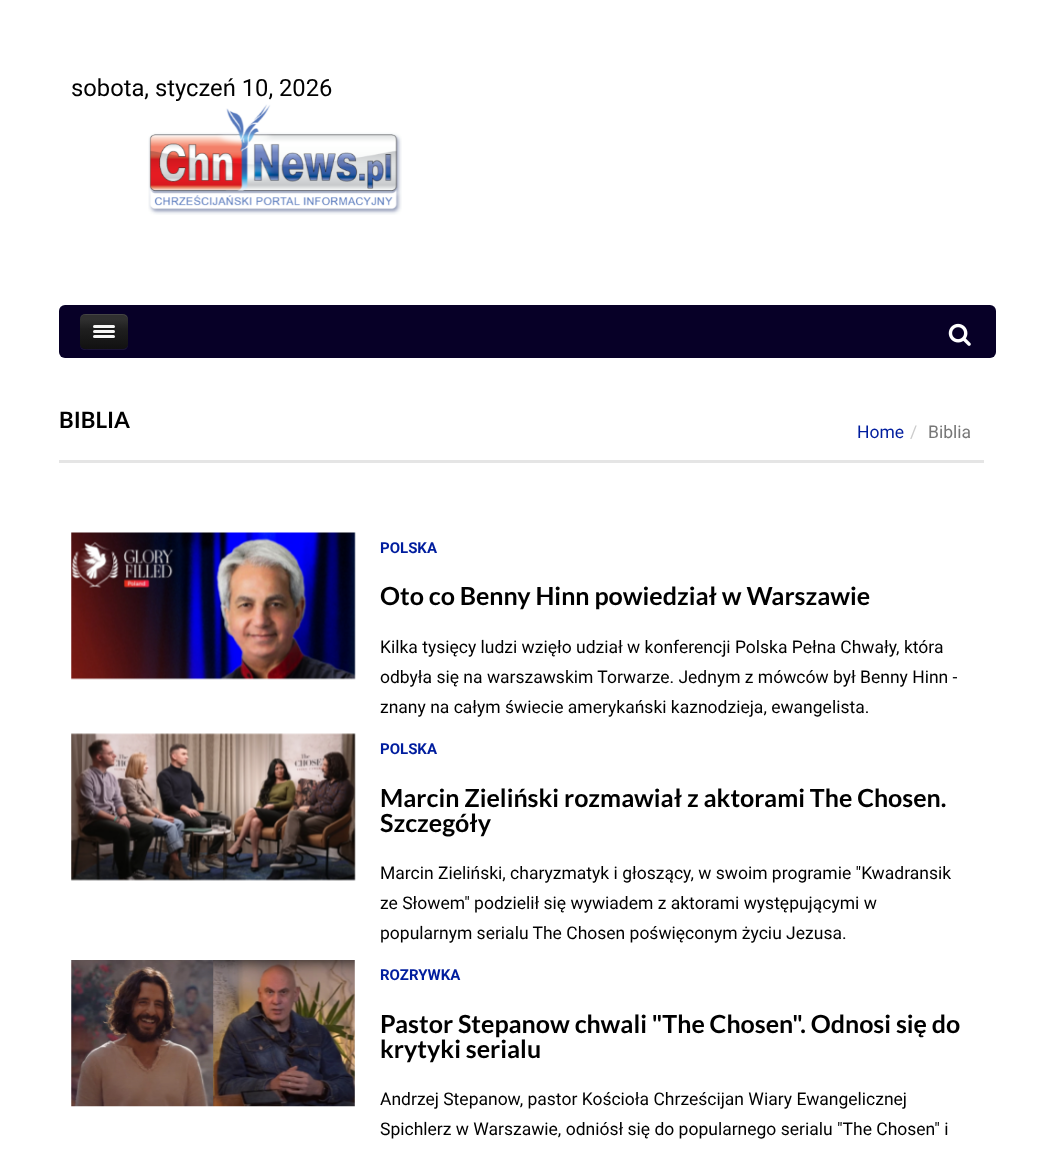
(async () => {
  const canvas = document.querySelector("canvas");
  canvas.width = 1054;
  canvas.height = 1152;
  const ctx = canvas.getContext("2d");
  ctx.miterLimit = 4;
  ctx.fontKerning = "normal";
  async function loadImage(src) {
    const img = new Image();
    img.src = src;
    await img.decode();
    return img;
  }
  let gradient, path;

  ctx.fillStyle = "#ffffff";
  ctx.fillRect(0, 0, 1054, 1152);
  ctx.drawImage(await loadImage("img/1.png"), 148, 104, 254, 111);
  ctx.fillStyle = "#070027";
  ctx.beginPath();
  ctx.roundRect(59, 305, 937, 53, 6);
  ctx.fill();
  ctx.fillStyle = "#1a1337";
  path = new Path2D("M80 344V345C80 348 82 350 85 350H123C126 350 128 348 128 345V320L127 318L128 335C128 348 129 349 116 349H91C88 349 83 350 81 347Z");
  ctx.fill(path);
  gradient = ctx.createLinearGradient(104, 349, 104, 314);
  gradient.addColorStop(0.01, "#111111");
  gradient.addColorStop(0.57, "#1f1f1f");
  gradient.addColorStop(0.85, "#303030");
  ctx.fillStyle = gradient;
  ctx.beginPath();
  ctx.roundRect(80, 314, 48, 35, 5);
  ctx.fill();
  ctx.fillStyle = "rgba(255, 255, 255, 0.1)";
  path = new Path2D("M85 315H122C125 315 128 317 128 320C128 313 122 314 117 314H91C86 314 80 313 80 320C80 317 82 315 85 315Z");
  ctx.fill(path);
  ctx.fillStyle = "#181818";
  path = new Path2D("M93 327.5C92.5 329.5 96.5 329 97.5 329H110.5C111 329 116 329.5 115 327L114 327.5C112 327.5 93.5 327.5 93 327.5Z");
  ctx.fill(path);
  ctx.fillStyle = "#f5f5f5";
  ctx.beginPath();
  ctx.roundRect(93, 325, 22, 3, 1.5);
  ctx.fill();
  ctx.fillStyle = "#151515";
  path = new Path2D("M93 332.5C92.5 334.5 96.5 334 97.5 334H110.5C111 334 116 334.5 115 332L114 332.5C112 332.5 93.5 332.5 93 332.5Z");
  ctx.fill(path);
  ctx.fillStyle = "#f5f5f5";
  ctx.beginPath();
  ctx.roundRect(93, 330, 22, 3, 1.5);
  ctx.fill();
  ctx.fillStyle = "#121212";
  path = new Path2D("M93 337.5C92.5 339.5 96.5 339 97.5 339H110.5C111 339 116 339.5 115 337L114 337.5C112 337.5 93.5 337.5 93 337.5Z");
  ctx.fill(path);
  ctx.fillStyle = "#f5f5f5";
  ctx.beginPath();
  ctx.roundRect(93, 335, 22, 3, 1.5);
  ctx.fill();
  ctx.drawImage(await loadImage("img/2.png"), 948, 323, 23, 23);
  ctx.fillStyle = "#e5e5e5";
  ctx.fillRect(59, 460, 925, 3);
  ctx.drawImage(await loadImage("img/3.png"), 71, 532, 285, 148);
  ctx.drawImage(await loadImage("img/4.png"), 71, 733, 285, 148);
  ctx.drawImage(await loadImage("img/5.png"), 71, 960, 284, 147);
  ctx.font = "23.75px Roboto";
  ctx.fillStyle = "#000000";
  ctx.fillText("sobota, styczeń 10, 2026", 71, 96);
  ctx.font = "bold 22.5px Lato";
  ctx.fillText("BIBLIA", 59, 428);
  ctx.font = "17.5px Roboto";
  ctx.fillStyle = "#001d9e";
  ctx.fillText("Home", 857, 438);
  ctx.fillStyle = "#cccccc";
  ctx.fillText("/", 910, 438);
  ctx.fillStyle = "#777777";
  ctx.fillText("Biblia", 928, 438);
  ctx.font = "bold 15px Roboto";
  ctx.fillStyle = "#001d9e";
  ctx.fillText("POLSKA", 380, 553);
  ctx.font = "bold 25px Lato";
  ctx.fillStyle = "#000000";
  ctx.fillText("Oto co Benny Hinn powiedział w Warszawie", 380, 605);
  ctx.font = "17.5px Roboto";
  for (const [text, x, y] of [
    ["Kilka tysięcy ludzi wzięło udział w konferencji Polska Pełna Chwały, która", 380, 653],
    ["odbyła się na warszawskim Torwarze. Jednym z mówców był Benny Hinn -", 380, 683],
    ["znany na całym świecie amerykański kaznodzieja, ewangelista.", 380, 713],
  ]) {
    ctx.fillText(text, x, y);
  }
  ctx.font = "bold 15px Roboto";
  ctx.fillStyle = "#001d9e";
  ctx.fillText("POLSKA", 380, 754);
  ctx.font = "bold 25px Lato";
  ctx.fillStyle = "#000000";
  ctx.fillText("Marcin Zieliński rozmawiał z aktorami The Chosen.", 380, 807);
  ctx.fillText("Szczegóły", 380, 832);
  ctx.font = "17.5px Roboto";
  for (const [text, x, y] of [
    ["Marcin Zieliński, charyzmatyk i głoszący, w swoim programie \"Kwadransik", 380, 879],
    ["ze Słowem\" podzielił się wywiadem z aktorami występującymi w", 380, 909],
    ["popularnym serialu The Chosen poświęconym życiu Jezusa.", 380, 939],
  ]) {
    ctx.fillText(text, x, y);
  }
  ctx.font = "bold 15px Roboto";
  ctx.fillStyle = "#001d9e";
  ctx.fillText("ROZRYWKA", 380, 980);
  ctx.font = "bold 25px Lato";
  ctx.fillStyle = "#000000";
  ctx.fillText("Pastor Stepanow chwali \"The Chosen\". Odnosi się do", 380, 1033);
  ctx.fillText("krytyki serialu", 380, 1058);
  ctx.font = "17.5px Roboto";
  ctx.fillText("Andrzej Stepanow, pastor Kościoła Chrześcijan Wiary Ewangelicznej", 380, 1105);
  ctx.fillText("Spichlerz w Warszawie, odniósł się do popularnego serialu \"The Chosen\" i", 380, 1135);
})();
